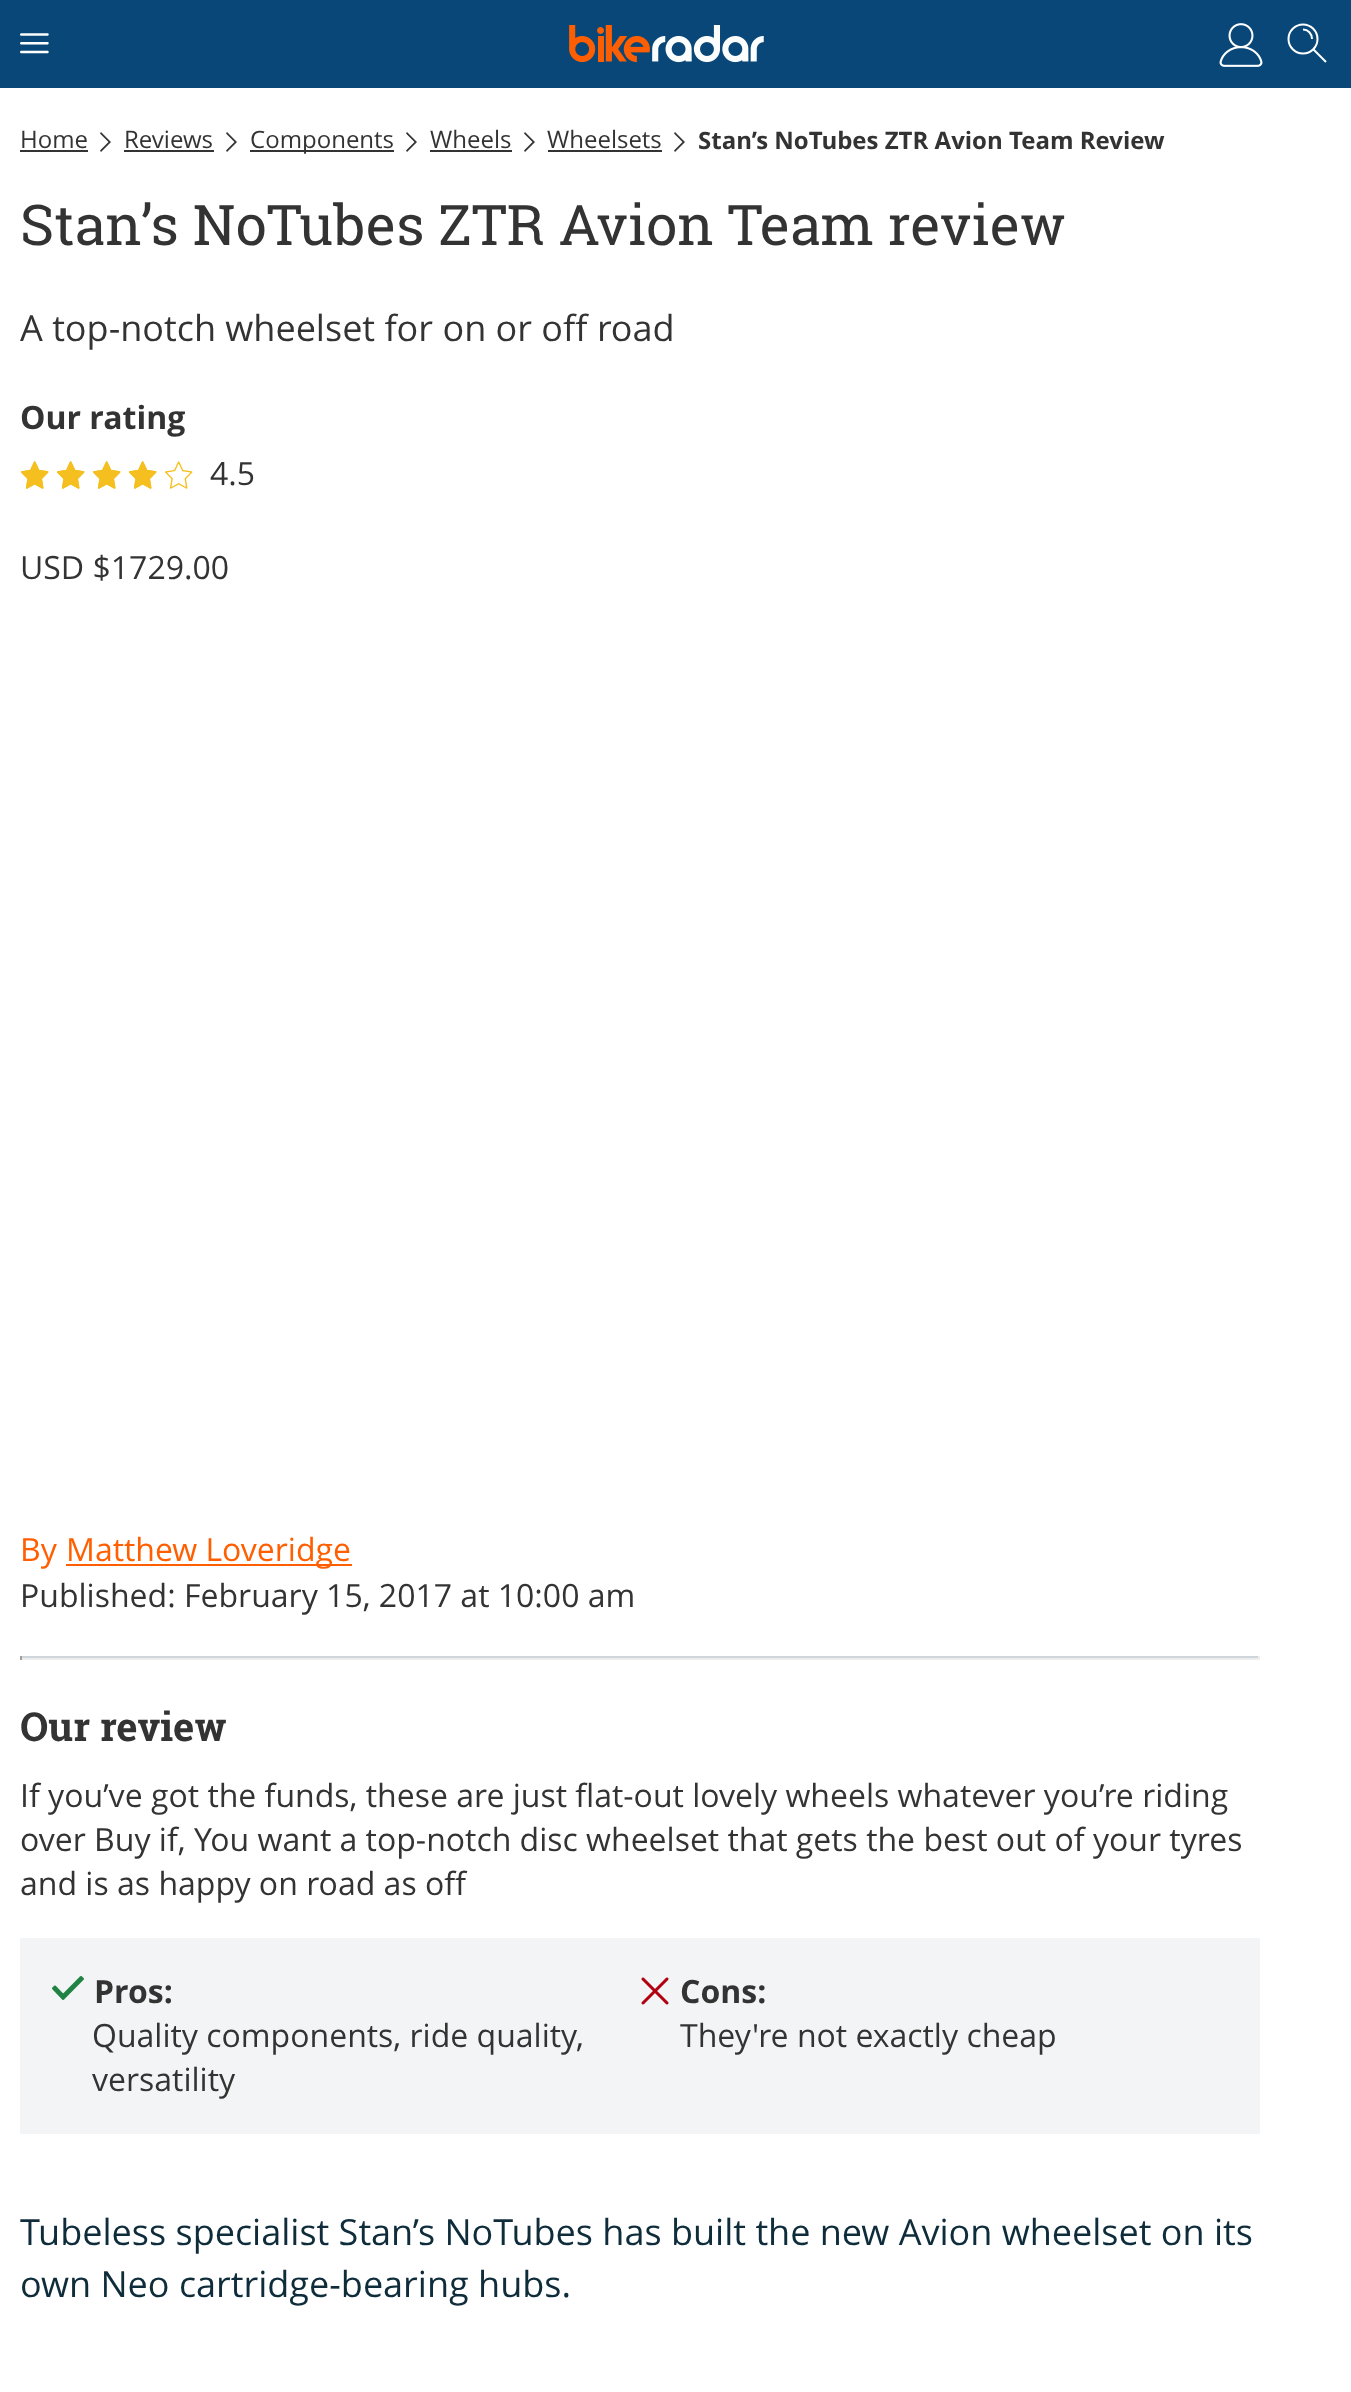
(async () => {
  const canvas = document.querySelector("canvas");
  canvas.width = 1351;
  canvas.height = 2392;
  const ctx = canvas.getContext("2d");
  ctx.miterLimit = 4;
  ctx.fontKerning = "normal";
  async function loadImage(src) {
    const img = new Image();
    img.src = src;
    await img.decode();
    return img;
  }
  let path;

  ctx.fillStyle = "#ffffff";
  ctx.fillRect(0, 0, 1351, 2392);
  ctx.fillStyle = "#084777";
  ctx.fillRect(0, 0, 1351, 88);
  ctx.drawImage(await loadImage("img/1.png"), 20, 33, 29, 21);
  ctx.drawImage(await loadImage("img/2.png"), 569, 25, 195, 38);
  ctx.drawImage(await loadImage("img/3.png"), 1219, 23, 44, 44);
  ctx.beginPath();
  ctx.arc(1303, 39, 14.5, 0, Math.PI * 2);
  ctx.strokeStyle = "#ffffff";
  ctx.lineWidth = 2;
  ctx.stroke();
  path = new Path2D("M1312 39C1312 33.5 1308 29.5 1303 29.5");
  ctx.stroke(path);
  path = new Path2D("M1326 62L1313 49");
  ctx.lineJoin = "round";
  ctx.stroke(path);
  ctx.fillStyle = "#333333";
  ctx.fillRect(20, 150, 68, 2);
  ctx.fillStyle = "#343434";
  path = new Path2D("M101 152L111 142L101 132L100 133.5L108.5 142L100 150.5Z");
  ctx.fill(path, "evenodd");
  ctx.fillStyle = "#333333";
  ctx.fillRect(124, 150, 90, 2);
  ctx.fillStyle = "#343434";
  path = new Path2D("M227 152L237 142L227 132L226 133.5L234.5 142L226 150.5Z");
  ctx.fill(path, "evenodd");
  ctx.fillStyle = "#333333";
  ctx.fillRect(250, 150, 144, 2);
  ctx.fillStyle = "#343434";
  path = new Path2D("M407 152L417 142L407 132L406 133.5L414.5 142L406 150.5Z");
  ctx.fill(path, "evenodd");
  ctx.fillStyle = "#333333";
  ctx.fillRect(430, 150, 82, 2);
  ctx.fillStyle = "#343434";
  path = new Path2D("M525 152L535 142L525 132L524 133.5L532.5 142L524 150.5Z");
  ctx.fill(path, "evenodd");
  ctx.fillStyle = "#333333";
  ctx.fillRect(548, 150, 114, 2);
  ctx.fillStyle = "#343434";
  path = new Path2D("M675 152L685 142L675 132L674 133.5L682.5 142L674 150.5Z");
  ctx.fill(path, "evenodd");
  ctx.drawImage(await loadImage("img/4.png"), 21, 461, 28, 28);
  ctx.drawImage(await loadImage("img/4.png"), 57, 461, 28, 28);
  ctx.drawImage(await loadImage("img/4.png"), 93, 461, 28, 28);
  ctx.drawImage(await loadImage("img/4.png"), 129, 461, 28, 28);
  ctx.drawImage(await loadImage("img/5.png"), 165, 461, 28, 28);
  for (const [x, y, w, h, color] of [
    [66, 1564, 286, 2, "#ff5f00"],
    [20, 1656, 1240, 2, "#cfd5d8"],
    [1258, 1656, 2, 4, "#eeeeee"],
    [20, 1658, 1240, 2, "#eeeeee"],
    [20, 1656, 2, 4, "#9f9f9f"],
    [20, 1938, 1240, 196, "#f3f4f5"],
  ]) {
    ctx.fillStyle = color;
    ctx.fillRect(x, y, w, h);
  }
  ctx.drawImage(await loadImage("img/6.png"), 52, 1976, 32, 24);
  ctx.drawImage(await loadImage("img/7.png"), 641, 1977, 28, 28);
  ctx.font = "24px Open Sans";
  ctx.fillStyle = "#333333";
  for (const [text, x, y] of [
    ["Home", 20, 148],
    ["Reviews", 124, 148],
    ["Components", 250, 148],
    ["Wheels", 430, 148],
    ["Wheelsets", 547, 148],
  ]) {
    ctx.fillText(text, x, y);
  }
  ctx.font = "bold 24px Open Sans";
  ctx.fillText("Stan’s NoTubes ZTR Avion Team Review", 698, 149);
  ctx.font = "56px Roboto Slab";
  ctx.fillText("Stan’s NoTubes ZTR Avion Team review", 20, 245);
  ctx.font = "36px Open Sans";
  ctx.fillText("A top-notch wheelset for on or off road", 20, 341);
  ctx.font = "bold 32px Open Sans";
  ctx.fillText("Our rating", 20, 429);
  ctx.font = "32px Open Sans";
  ctx.fillText("4.5", 210, 485);
  ctx.fillText("USD $1729.00", 20, 579);
  ctx.fillStyle = "#ff5f00";
  ctx.fillText("By", 20, 1561);
  ctx.fillText("Matthew Loveridge", 66, 1561);
  ctx.fillStyle = "#333333";
  ctx.fillText("Published: February 15, 2017 at 10:00 am", 20, 1607);
  ctx.font = "bold 40px Roboto Slab";
  ctx.fillText("Our review", 20, 1741);
  ctx.font = "32px Open Sans";
  for (const [text, x, y] of [
    ["If you’ve got the funds, these are just flat-out lovely wheels whatever you’re riding", 20, 1807],
    ["over Buy if, You want a top-notch disc wheelset that gets the best out of your tyres", 20, 1851],
    ["and is as happy on road as off", 20, 1895],
  ]) {
    ctx.fillText(text, x, y);
  }
  ctx.font = "bold 32px Open Sans";
  ctx.fillText("Pros:", 94, 2003);
  ctx.font = "32px Open Sans";
  ctx.fillText("Quality components, ride quality,", 92, 2047);
  ctx.fillText("versatility", 92, 2091);
  ctx.font = "bold 32px Open Sans";
  ctx.fillText("Cons:", 680, 2003);
  ctx.font = "32px Open Sans";
  ctx.fillText("They're not exactly cheap", 680, 2047);
  ctx.font = "36px Open Sans";
  ctx.fillStyle = "#0f2c3b";
  ctx.fillText("Tubeless specialist Stan’s NoTubes has built the new Avion wheelset on its", 20, 2245);
  ctx.fillText("own Neo cartridge-bearing hubs.", 20, 2297);
})();
